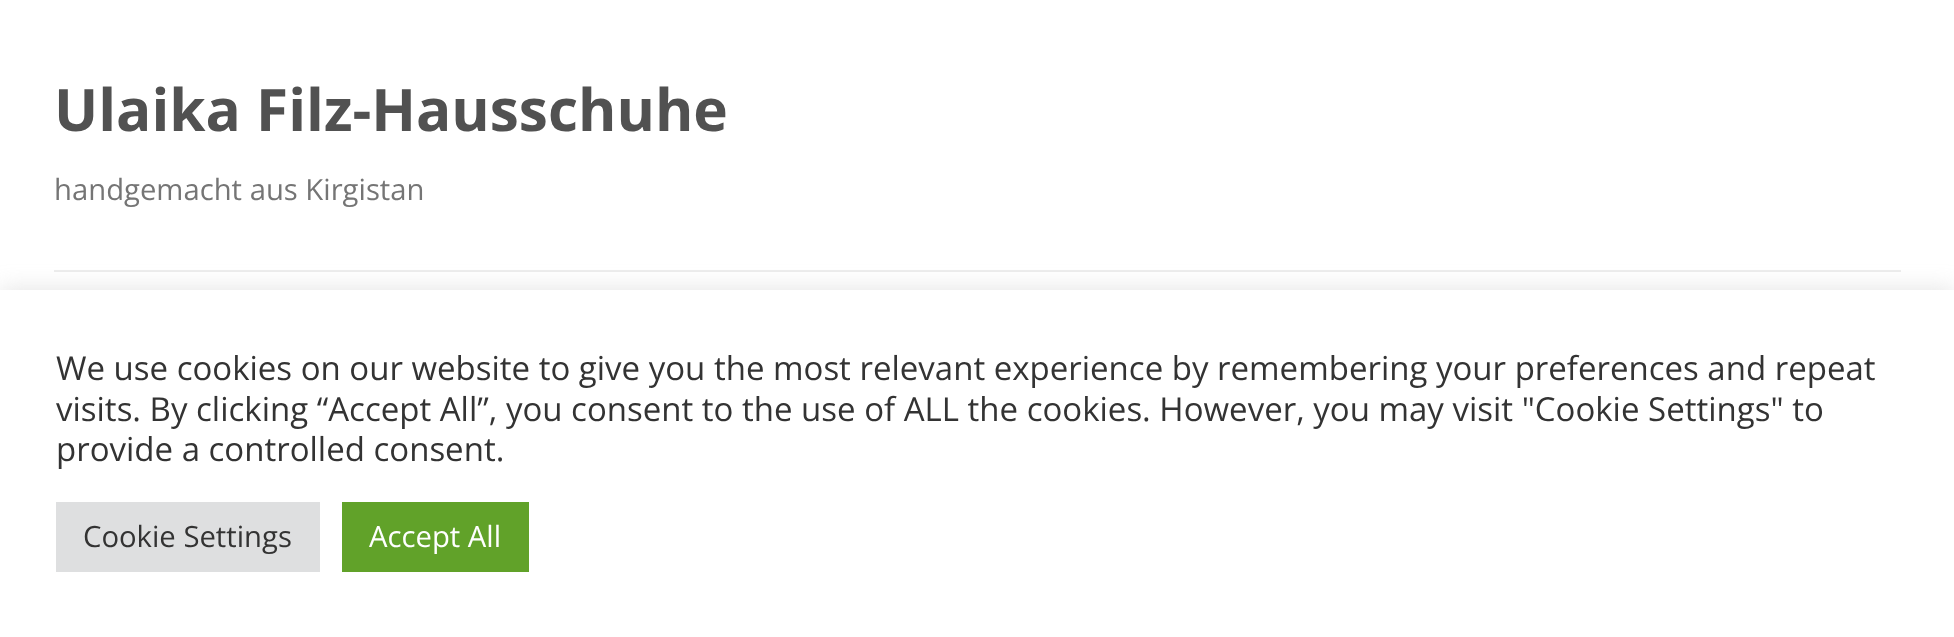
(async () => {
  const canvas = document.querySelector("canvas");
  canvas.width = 1954;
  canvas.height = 637;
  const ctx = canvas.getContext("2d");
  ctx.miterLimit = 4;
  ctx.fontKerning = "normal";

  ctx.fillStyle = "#ffffff";
  ctx.fillRect(0, 0, 1954, 637);
  ctx.fillStyle = "#ededed";
  ctx.fillRect(54, 270, 1847, 2);
  ctx.fillStyle = "rgba(172, 171, 171, 0.3)";
  ctx.filter = "blur(11px)";
  ctx.beginPath();
  ctx.rect(0, 288, 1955, 349);
  ctx.fill();
  ctx.filter = "none";
  for (const [x, y, w, h, color] of [
    [0, 290, 1954, 347, "#ffffff"],
    [56, 502, 264, 70, "#dedfe0"],
    [342, 502, 187, 70, "#61a229"],
  ]) {
    ctx.fillStyle = color;
    ctx.fillRect(x, y, w, h);
  }
  ctx.font = "bold 58.5px Open Sans";
  ctx.fillStyle = "#515151";
  ctx.fillText("Ulaika Filz-Hausschuhe", 54, 131);
  ctx.font = "29.25px Open Sans";
  ctx.fillStyle = "#757575";
  ctx.fillText("handgemacht aus Kirgistan", 54, 200);
  ctx.font = "33px Open Sans";
  ctx.fillStyle = "#333333";
  for (const [text, x, y] of [
    ["We use cookies on our website to give you the most relevant experience by remembering your preferences and repeat", 56, 380],
    ["visits. By clicking “Accept All”, you consent to the use of ALL the cookies. However, you may visit \"Cookie Settings\" to", 56, 421],
    ["provide a controlled consent.", 56, 461],
  ]) {
    ctx.fillText(text, x, y);
  }
  ctx.font = "29.25px Open Sans";
  ctx.fillText("Cookie Settings", 83, 547);
  ctx.fillStyle = "#ffffff";
  ctx.fillText("Accept All", 369, 547);
})();
